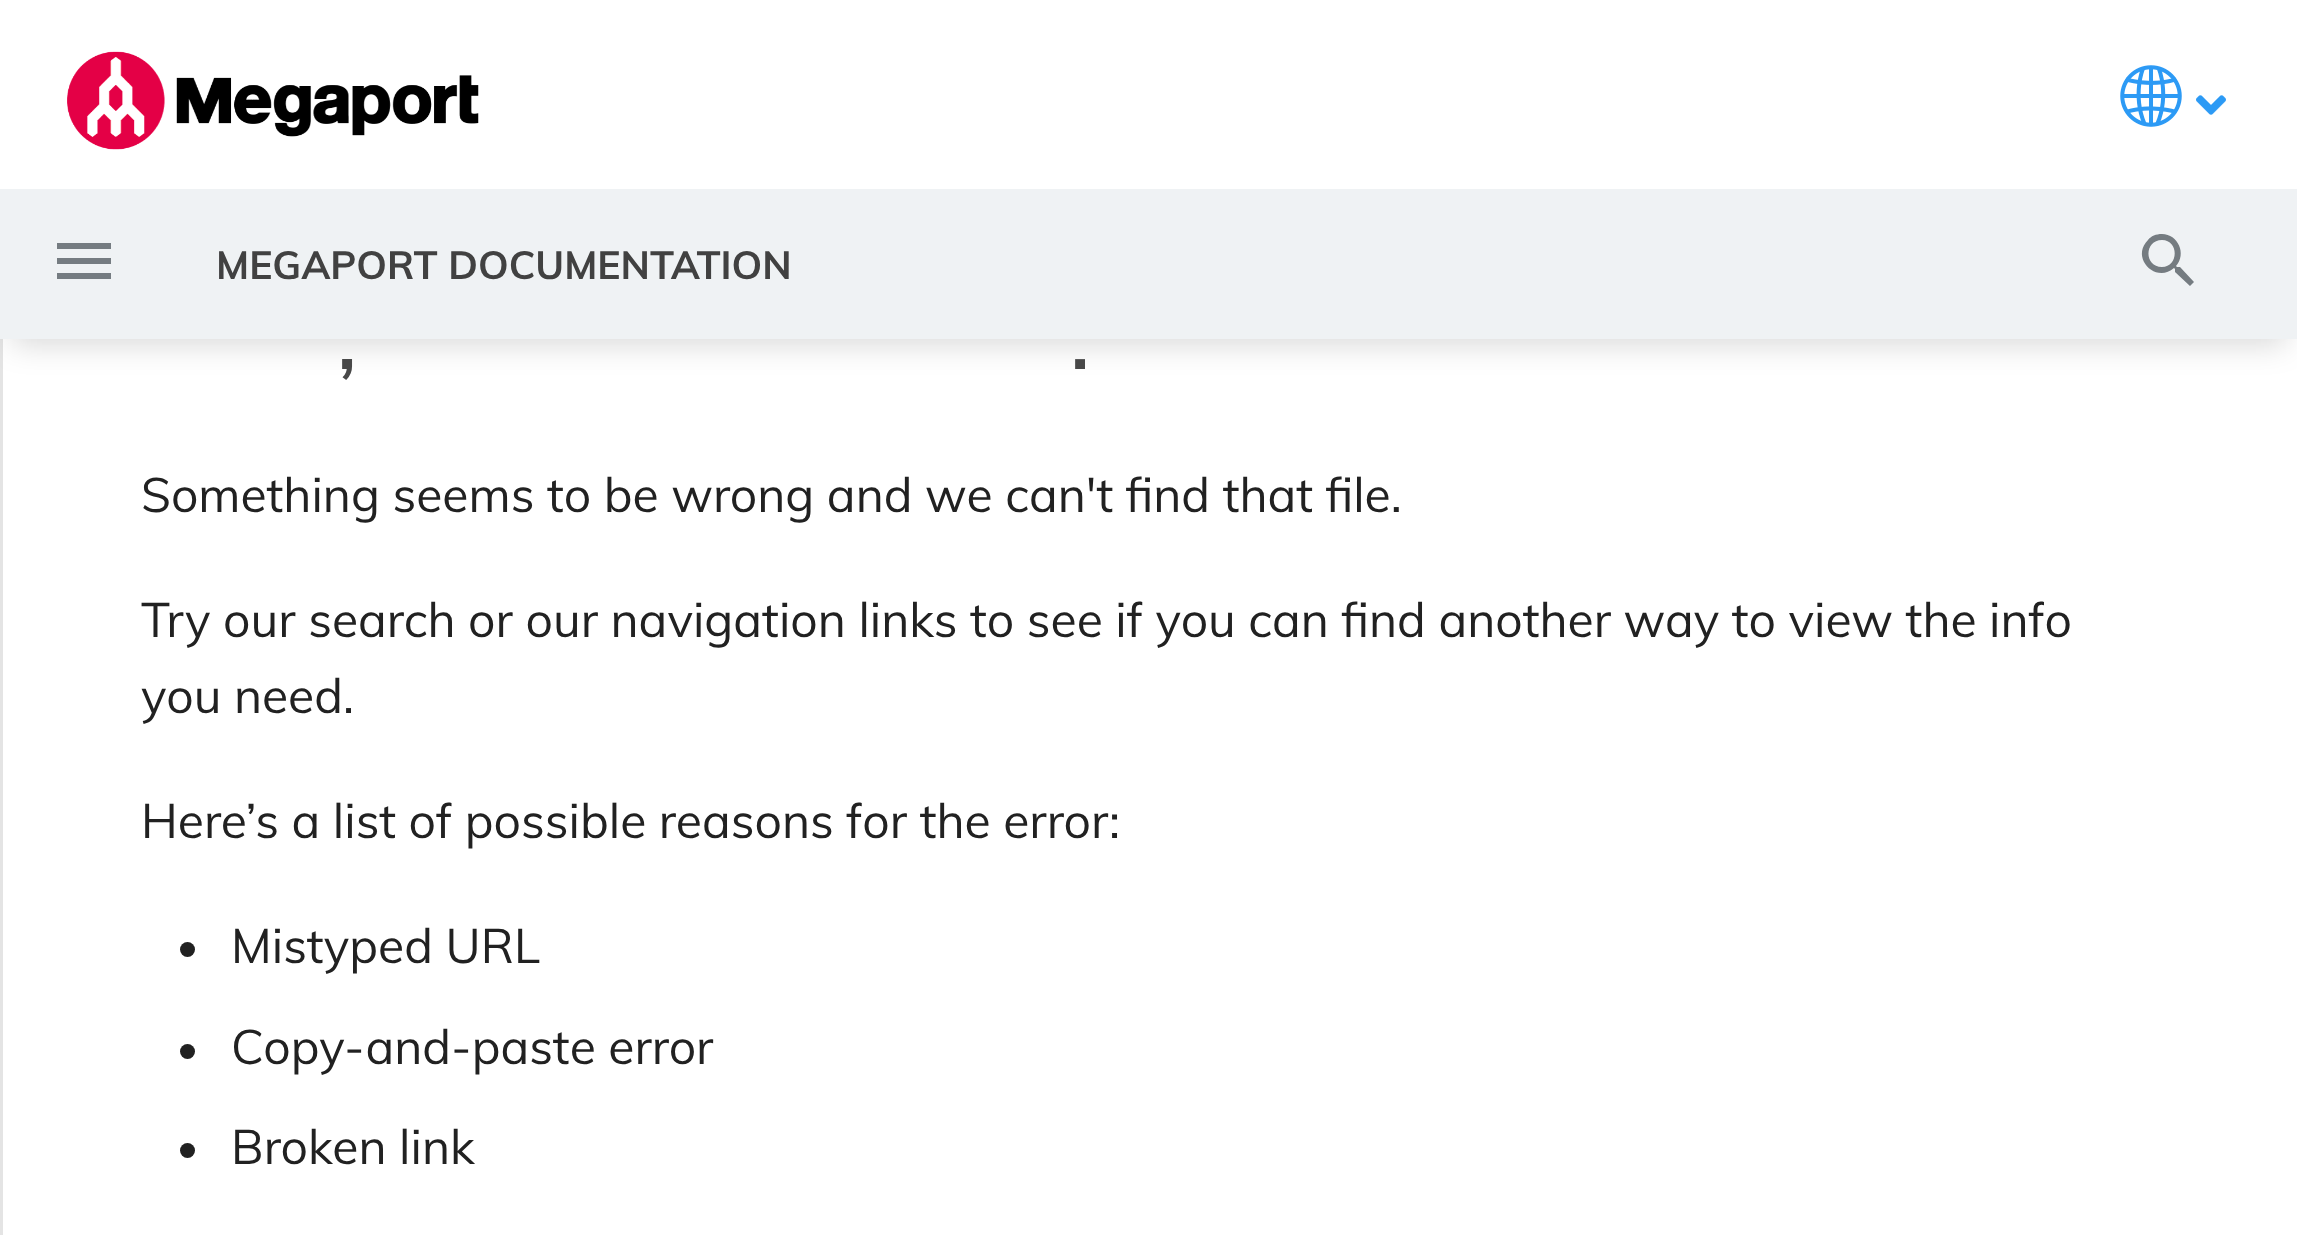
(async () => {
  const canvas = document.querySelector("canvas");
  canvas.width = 2297;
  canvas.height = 1235;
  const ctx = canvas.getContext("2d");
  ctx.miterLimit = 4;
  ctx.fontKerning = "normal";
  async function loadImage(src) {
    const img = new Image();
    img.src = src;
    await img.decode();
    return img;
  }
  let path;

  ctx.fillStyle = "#ffffff";
  ctx.fillRect(0, 0, 2297, 1235);
  ctx.drawImage(await loadImage("img/1.png"), 67, 51, 412, 99);
  ctx.drawImage(await loadImage("img/2.png"), 2120, 65, 62, 62);
  ctx.drawImage(await loadImage("img/3.png"), 2196, 95, 30, 20);
  ctx.fillStyle = "#e4e4e4";
  ctx.fillRect(0, 339, 3, 896);
  ctx.fillStyle = "rgba(0, 0, 0, 0.15)";
  ctx.filter = "blur(15px)";
  ctx.beginPath();
  ctx.rect(12, 219, 2274, 126);
  ctx.fill();
  ctx.filter = "none";
  ctx.fillStyle = "#eff2f4";
  ctx.fillRect(0, 189, 2297, 150);
  ctx.fillStyle = "#757c81";
  path = new Path2D("M57 243H111V249H57V243M57 258H111V264H57V258M57 273H111V279H57Z");
  ctx.fill(path);
  path = new Path2D("M2162 234C2178 234 2187 254 2176 266L2177 267H2180L2194 282L2190 286L2175 272V269L2174 268C2156 284 2130 258 2148 240C2151 236 2156 234 2162 234M2162 240C2144 240 2144 267 2162 267C2179 267 2179 240 2162 240Z");
  ctx.fill(path);
  ctx.fillStyle = "#212121";
  ctx.beginPath();
  ctx.arc(187.5, 949.5, 7.5, 0, Math.PI * 2);
  ctx.fill();
  ctx.beginPath();
  ctx.arc(187.5, 1051.5, 7.5, 0, Math.PI * 2);
  ctx.fill();
  ctx.beginPath();
  ctx.arc(187.5, 1150.5, 7.5, 0, Math.PI * 2);
  ctx.fill();
  ctx.font = "bold 39px Muli";
  ctx.fillStyle = "#414141";
  ctx.fillText("MEGAPORT DOCUMENTATION", 216, 279);
  ctx.letterSpacing = "-1px";
  ctx.font = "96px Muli";
  ctx.fillStyle = "#484848";
  ctx.fillText(",", 336, 369);
  ctx.fillText(".", 1069, 369);
  ctx.letterSpacing = "0px";
  ctx.font = "48px Muli";
  ctx.fillStyle = "#212121";
  for (const [text, x, y] of [
    ["Something seems to be wrong and we can't find that file.", 141, 512],
    ["Try our search or our navigation links to see if you can find another way to view the info", 141, 637],
    ["you need.", 141, 713],
    ["Here’s a list of possible reasons for the error:", 141, 838],
    ["Mistyped URL", 231, 963],
    ["Copy-and-paste error", 231, 1064],
    ["Broken link", 231, 1164],
  ]) {
    ctx.fillText(text, x, y);
  }
})();
